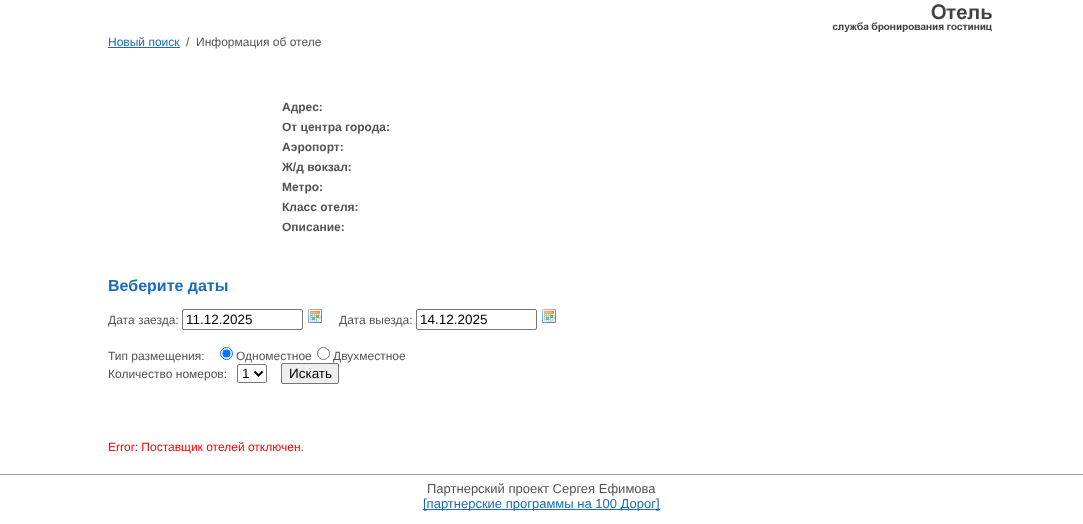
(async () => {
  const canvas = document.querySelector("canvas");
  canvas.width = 1083;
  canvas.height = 524;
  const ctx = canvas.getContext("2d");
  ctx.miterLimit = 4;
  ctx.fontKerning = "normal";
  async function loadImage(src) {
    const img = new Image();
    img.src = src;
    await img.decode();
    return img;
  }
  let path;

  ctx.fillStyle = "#ffffff";
  ctx.fillRect(0, 0, 1083, 524);
  ctx.drawImage(await loadImage("img/1.png"), 832, 4, 160, 28);
  ctx.fillStyle = "#1c6ac0";
  ctx.fillRect(108, 47, 72, 1);
  ctx.beginPath();
  ctx.roundRect(182.5, 309.5, 120, 20, 1.5);
  ctx.strokeStyle = "#767676";
  ctx.stroke();
  ctx.drawImage(await loadImage("img/2.png"), 308, 309, 14, 14);
  ctx.beginPath();
  ctx.roundRect(416.5, 309.5, 120, 20, 1.5);
  ctx.stroke();
  ctx.drawImage(await loadImage("img/2.png"), 542, 309, 14, 14);
  ctx.beginPath();
  ctx.arc(226.5, 353.5, 6, 0, Math.PI * 2);
  ctx.strokeStyle = "#0075ff";
  ctx.stroke();
  ctx.fillStyle = "#0075ff";
  ctx.beginPath();
  ctx.arc(226.5, 353.5, 4, 0, Math.PI * 2);
  ctx.fill();
  ctx.beginPath();
  ctx.arc(323.5, 353.5, 6, 0, Math.PI * 2);
  ctx.strokeStyle = "#767676";
  ctx.stroke();
  ctx.beginPath();
  ctx.roundRect(237.5, 364.5, 29, 18, 1.5);
  ctx.stroke();
  path = new Path2D("M254.5 371.5L258.5 375.5L262.5 371.5");
  ctx.strokeStyle = "#000000";
  ctx.lineWidth = 2;
  ctx.stroke(path);
  ctx.fillStyle = "#efefef";
  ctx.beginPath();
  ctx.roundRect(281.5, 363.5, 57, 20, 1.5);
  ctx.fill();
  ctx.strokeStyle = "#767676";
  ctx.lineWidth = 1;
  ctx.stroke();
  ctx.fillStyle = "#9f9f9f";
  ctx.fillRect(0, 474, 1083, 1);
  ctx.fillStyle = "#1c6ac0";
  ctx.fillRect(423, 509, 237, 1);
  ctx.font = "12px Liberation Sans";
  ctx.fillText("Новый поиск", 108, 46);
  ctx.fillStyle = "#525353";
  ctx.fillText("/  Информация об отеле", 186, 46);
  ctx.font = "bold 12px Liberation Sans";
  for (const [text, x, y] of [
    ["Адрес:", 282, 111],
    ["От центра города:", 282, 131],
    ["Аэропорт:", 282, 151],
    ["Ж/д вокзал:", 282, 171],
    ["Метро:", 282, 191],
    ["Класс отеля:", 282, 211],
    ["Описание:", 282, 231],
  ]) {
    ctx.fillText(text, x, y);
  }
  ctx.font = "bold 16px Liberation Sans";
  ctx.fillStyle = "#1c6ac0";
  ctx.fillText("Веберите даты", 108, 291);
  ctx.font = "12px Liberation Sans";
  ctx.fillStyle = "#525353";
  ctx.fillText("Дата заезда:", 108, 324);
  ctx.font = "13.5px Liberation Sans";
  ctx.fillStyle = "#000000";
  ctx.fillText("11.12.2025", 186, 324);
  ctx.font = "12px Liberation Sans";
  ctx.fillStyle = "#525353";
  ctx.fillText("Дата выезда:", 339, 324);
  ctx.font = "13.5px Liberation Sans";
  ctx.fillStyle = "#000000";
  ctx.fillText("14.12.2025", 420, 324);
  ctx.font = "12px Liberation Sans";
  ctx.fillStyle = "#525353";
  for (const [text, x, y] of [
    ["Тип размещения:", 108, 360],
    ["Одноместное", 236, 360],
    ["Двухместное", 333, 360],
    ["Количество номеров:", 108, 378],
  ]) {
    ctx.fillText(text, x, y);
  }
  ctx.font = "13.5px Liberation Sans";
  ctx.fillStyle = "#000000";
  ctx.fillText("1", 242, 378);
  ctx.fillText("Искать", 289, 378);
  ctx.font = "12px Liberation Sans";
  ctx.fillStyle = "#ff0000";
  ctx.fillText("Error: Поставщик отелей отключен.", 108, 451);
  ctx.font = "13px Liberation Sans";
  ctx.fillStyle = "#525353";
  ctx.fillText("Партнерский проект Сергея Ефимова", 427, 493);
  ctx.fillStyle = "#1c6ac0";
  ctx.fillText("[партнерские программы на 100 Дорог]", 423, 508);
})();
